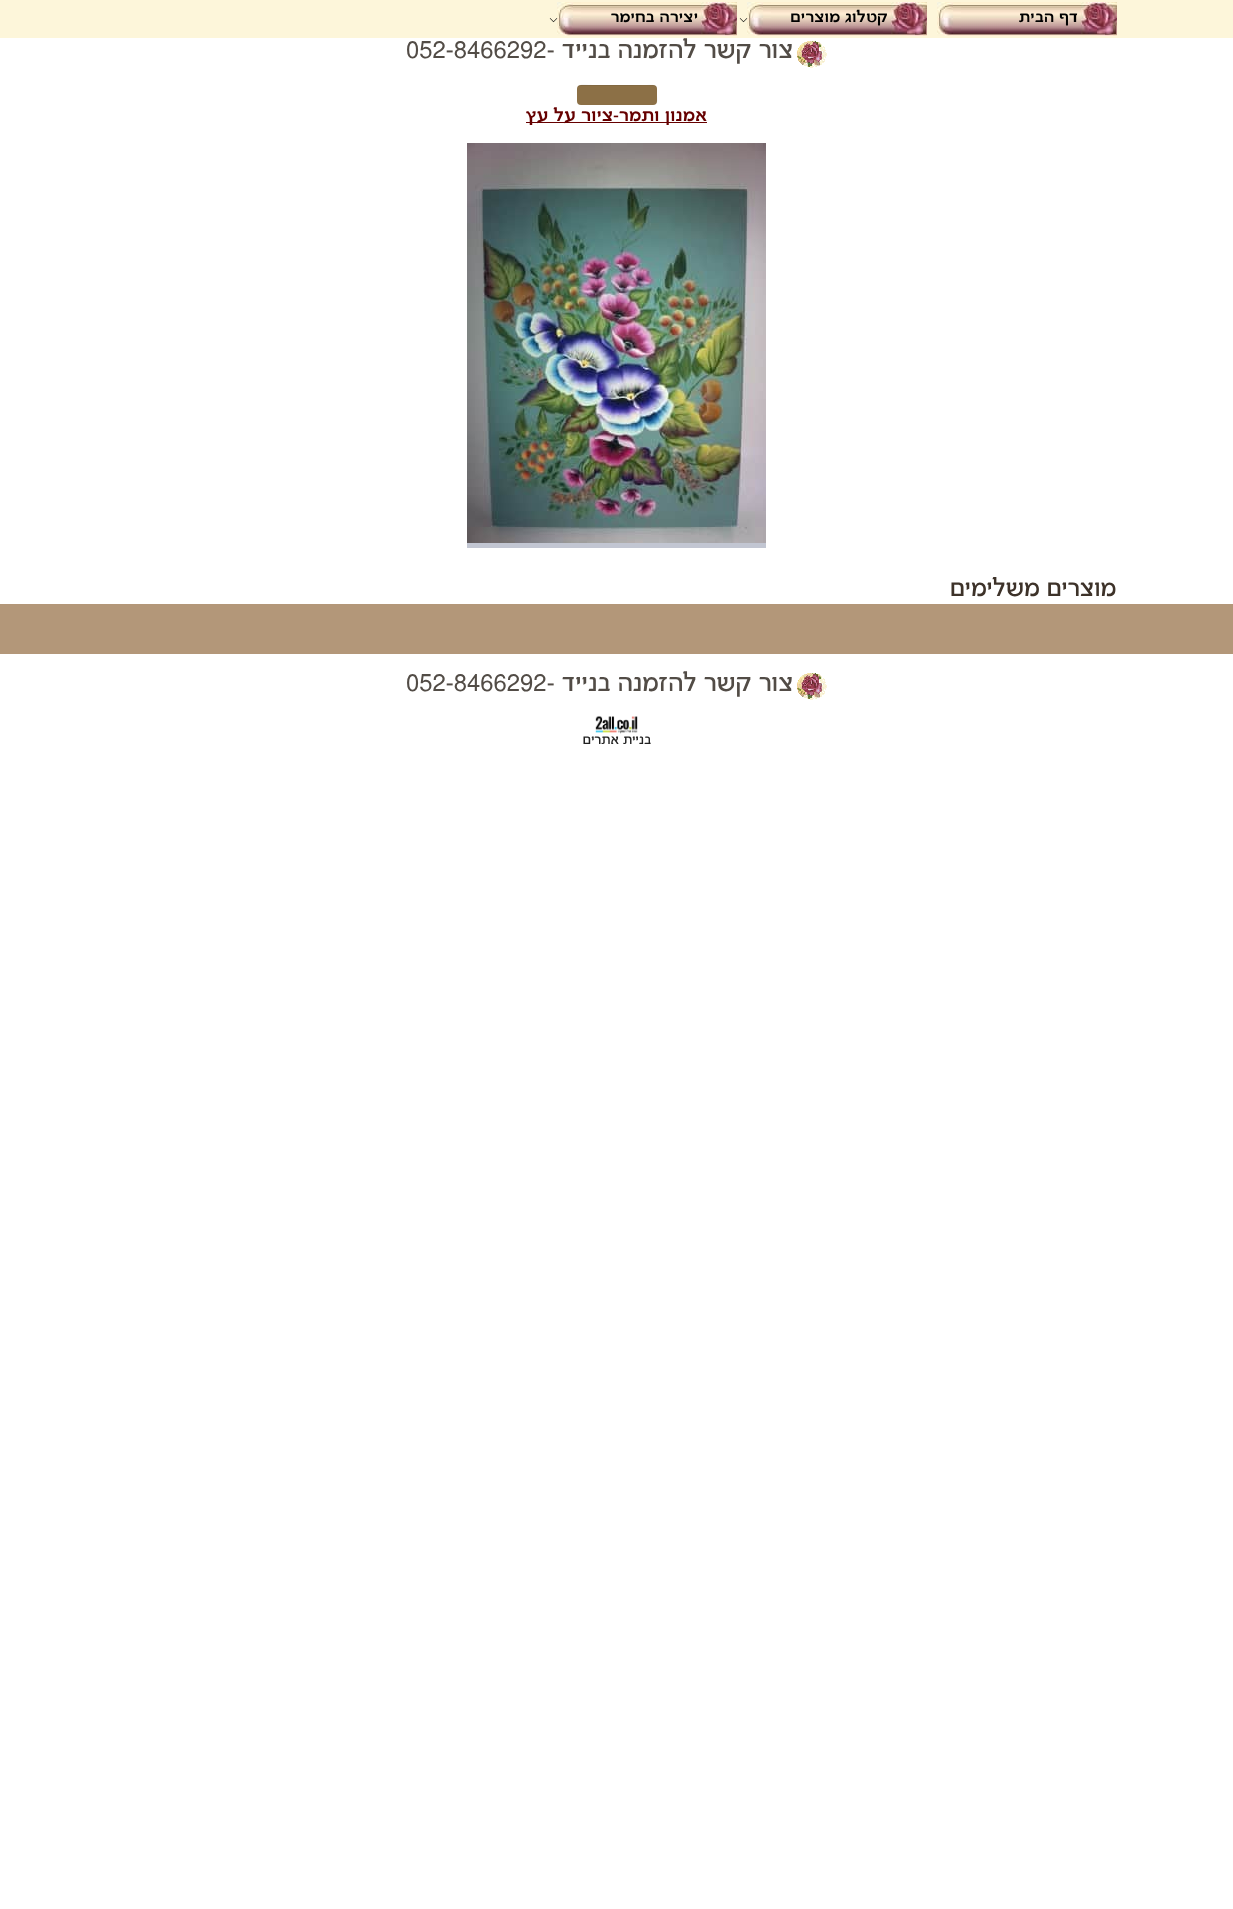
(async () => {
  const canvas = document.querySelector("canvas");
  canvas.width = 1233;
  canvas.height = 1909;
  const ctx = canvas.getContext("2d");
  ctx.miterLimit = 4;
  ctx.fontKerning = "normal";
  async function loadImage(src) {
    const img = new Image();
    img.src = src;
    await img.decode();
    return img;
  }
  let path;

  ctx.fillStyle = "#ffffff";
  ctx.fillRect(0, 0, 1233, 1909);
  ctx.fillStyle = "#fdf6da";
  ctx.fillRect(0, 0, 1233, 38);
  ctx.drawImage(await loadImage("img/1.png"), 937, 2, 180, 34);
  ctx.drawImage(await loadImage("img/1.png"), 747, 2, 180, 34);
  ctx.drawImage(await loadImage("img/2.png"), 739, 18, 9, 5);
  ctx.drawImage(await loadImage("img/1.png"), 557, 2, 180, 34);
  ctx.drawImage(await loadImage("img/2.png"), 549, 18, 9, 5);
  ctx.drawImage(await loadImage("img/3.png"), 797, 41, 30, 27);
  ctx.fillStyle = "#8c7046";
  ctx.beginPath();
  ctx.roundRect(577, 85, 80, 20, 4);
  ctx.fill();
  ctx.fillStyle = "rgba(0, 0, 0, 0.07)";
  path = new Path2D("M581 86H631C632 86 653 85 655 86C658 88 657 99 657 103C658 100 657 96 657 93C657 82 653 85 641 85H593C583 85 577 82 577 92C577 89 577 86 581 86Z");
  ctx.fill(path);
  ctx.fillStyle = "#660000";
  ctx.fillRect(526, 122, 181, 1);
  ctx.fillStyle = "#c2c6d2";
  ctx.fillRect(467, 543, 299, 5);
  ctx.drawImage(await loadImage("img/4.png"), 467, 143, 299, 400);
  ctx.fillStyle = "#b39779";
  ctx.fillRect(0, 604, 1233, 50);
  ctx.drawImage(await loadImage("img/3.png"), 797, 673, 30, 27);
  ctx.drawImage(await loadImage("img/5.png"), 595, 715, 43, 19);
  ctx.direction = "rtl";
  ctx.font = "bold 16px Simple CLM";
  ctx.fillStyle = "#000000";
  for (const [text, x, y] of [
    ["דף הבית", 1078, 22],
    ["קטלוג מוצרים", 888, 22],
    ["יצירה בחימר", 698, 22],
  ]) {
    ctx.fillText(text, x, y);
  }
  ctx.font = "500 26px Simple CLM";
  ctx.fillStyle = "#524c46";
  ctx.fillText("צור קשר להזמנה בנייד -", 793, 58);
  ctx.direction = "ltr";
  ctx.fillText("052-8466292", 406, 58);
  ctx.direction = "rtl";
  ctx.font = "bold 18px Simple CLM";
  ctx.fillStyle = "#660000";
  ctx.fillText("אמנון ותמר-ציור על עץ", 707, 121);
  ctx.font = "500 25px Simple CLM";
  ctx.fillStyle = "#3d3229";
  ctx.fillText("מוצרים משלימים", 1116, 596);
  ctx.font = "500 26px Simple CLM";
  ctx.fillStyle = "#524c46";
  ctx.fillText("צור קשר להזמנה בנייד -", 793, 691);
  ctx.direction = "ltr";
  ctx.fillText("052-8466292", 406, 691);
  ctx.direction = "rtl";
  ctx.font = "500 14px Simple CLM";
  ctx.fillStyle = "#222222";
  ctx.fillText("בניית אתרים", 651, 744);
})();
